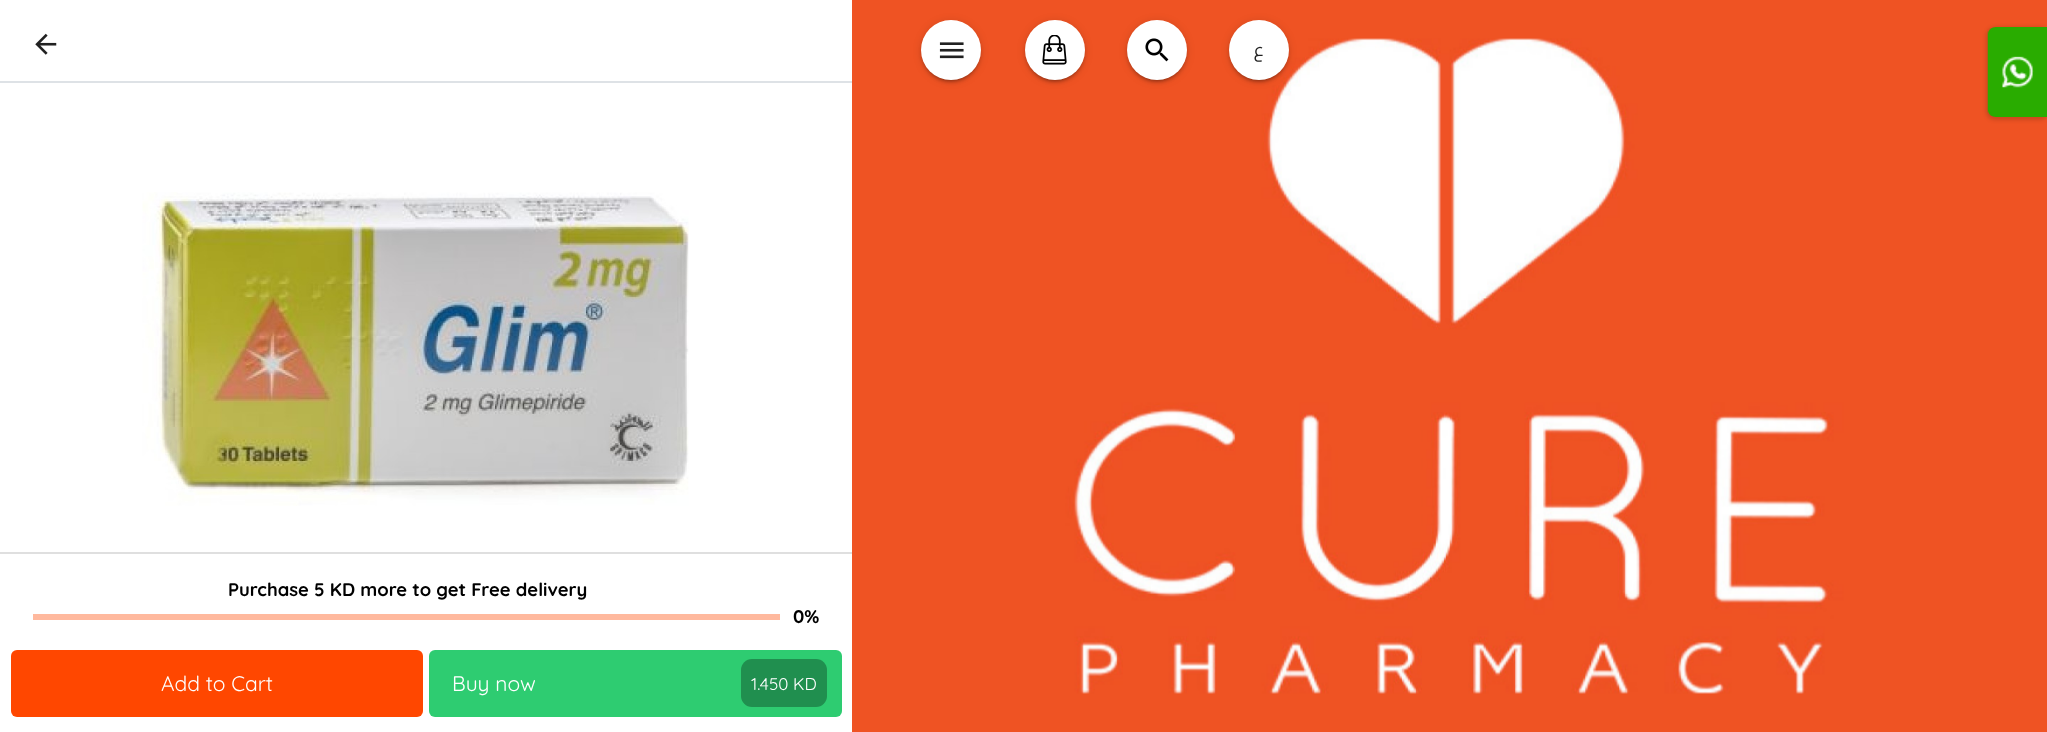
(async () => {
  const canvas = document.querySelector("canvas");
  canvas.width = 2047;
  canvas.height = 732;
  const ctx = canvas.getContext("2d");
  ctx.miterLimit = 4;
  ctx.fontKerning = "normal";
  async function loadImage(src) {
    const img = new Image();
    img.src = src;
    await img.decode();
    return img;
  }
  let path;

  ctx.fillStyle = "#ffffff";
  ctx.fillRect(0, 0, 2047, 732);
  ctx.drawImage(await loadImage("img/1.png"), 852, 0, 1195, 732);
  ctx.fillStyle = "rgba(0, 0, 0, 0.12)";
  ctx.filter = "blur(4px)";
  ctx.beginPath();
  ctx.roundRect(921, 21, 60, 60, 30);
  ctx.fill();
  ctx.filter = "none";
  ctx.fillStyle = "rgba(0, 0, 0, 0.14)";
  ctx.filter = "blur(1.5px)";
  ctx.beginPath();
  ctx.roundRect(921, 23, 60, 60, 30);
  ctx.fill();
  ctx.filter = "none";
  ctx.fillStyle = "rgba(0, 0, 0, 0.2)";
  ctx.filter = "blur(1px)";
  ctx.beginPath();
  ctx.roundRect(924, 27, 54, 54, 27);
  ctx.fill();
  ctx.filter = "none";
  ctx.fillStyle = "#ffffff";
  ctx.beginPath();
  ctx.arc(951, 50, 30, 0, Math.PI * 2);
  ctx.fill();
  ctx.drawImage(await loadImage("img/2.png"), 939, 42, 25, 17);
  ctx.fillStyle = "rgba(0, 0, 0, 0.12)";
  ctx.filter = "blur(4px)";
  ctx.beginPath();
  ctx.roundRect(1025, 21, 60, 60, 30);
  ctx.fill();
  ctx.filter = "none";
  ctx.fillStyle = "rgba(0, 0, 0, 0.14)";
  ctx.filter = "blur(1.5px)";
  ctx.beginPath();
  ctx.roundRect(1025, 23, 60, 60, 30);
  ctx.fill();
  ctx.filter = "none";
  ctx.fillStyle = "rgba(0, 0, 0, 0.2)";
  ctx.filter = "blur(1px)";
  ctx.beginPath();
  ctx.roundRect(1028, 27, 54, 54, 27);
  ctx.fill();
  ctx.filter = "none";
  ctx.fillStyle = "#ffffff";
  ctx.beginPath();
  ctx.arc(1055, 50, 30, 0, Math.PI * 2);
  ctx.fill();
  ctx.drawImage(await loadImage("img/3.png"), 1042, 35, 25, 30);
  ctx.fillStyle = "rgba(0, 0, 0, 0.12)";
  ctx.filter = "blur(4px)";
  ctx.beginPath();
  ctx.roundRect(1127, 21, 60, 60, 30);
  ctx.fill();
  ctx.filter = "none";
  ctx.fillStyle = "rgba(0, 0, 0, 0.14)";
  ctx.filter = "blur(1.5px)";
  ctx.beginPath();
  ctx.roundRect(1127, 23, 60, 60, 30);
  ctx.fill();
  ctx.filter = "none";
  ctx.fillStyle = "rgba(0, 0, 0, 0.2)";
  ctx.filter = "blur(1px)";
  ctx.beginPath();
  ctx.roundRect(1130, 27, 54, 54, 27);
  ctx.fill();
  ctx.filter = "none";
  ctx.fillStyle = "#ffffff";
  ctx.beginPath();
  ctx.arc(1157, 50, 30, 0, Math.PI * 2);
  ctx.fill();
  ctx.drawImage(await loadImage("img/4.png"), 1145, 38, 24, 24);
  ctx.fillStyle = "rgba(0, 0, 0, 0.12)";
  ctx.filter = "blur(4px)";
  ctx.beginPath();
  ctx.roundRect(1229, 21, 60, 60, 30);
  ctx.fill();
  ctx.filter = "none";
  ctx.fillStyle = "rgba(0, 0, 0, 0.14)";
  ctx.filter = "blur(1.5px)";
  ctx.beginPath();
  ctx.roundRect(1229, 23, 60, 60, 30);
  ctx.fill();
  ctx.filter = "none";
  ctx.fillStyle = "rgba(0, 0, 0, 0.2)";
  ctx.filter = "blur(1px)";
  ctx.beginPath();
  ctx.roundRect(1232, 27, 54, 54, 27);
  ctx.fill();
  ctx.filter = "none";
  ctx.fillStyle = "#ffffff";
  ctx.beginPath();
  ctx.arc(1259, 50, 30, 0, Math.PI * 2);
  ctx.fill();
  ctx.fillStyle = "#dee2e6";
  ctx.fillRect(0, 81, 852, 2);
  ctx.drawImage(await loadImage("img/5.png"), 35, 33, 22, 22);
  ctx.drawImage(await loadImage("img/6.png"), 142, 192, 547, 314);
  ctx.fillStyle = "#dfdfdf";
  ctx.fillRect(0, 552, 852, 2);
  ctx.fillStyle = "#ffb99e";
  ctx.fillRect(33, 614, 747, 6);
  ctx.fillStyle = "#ff4700";
  ctx.beginPath();
  ctx.roundRect(11, 650, 412, 67, 6);
  ctx.fill();
  ctx.fillStyle = "#2ecc71";
  ctx.beginPath();
  ctx.roundRect(429, 650, 413, 67, 6);
  ctx.fill();
  ctx.fillStyle = "#208f4f";
  ctx.beginPath();
  ctx.roundRect(741, 659, 86, 48, 11);
  ctx.fill();
  ctx.fillStyle = "rgba(0, 0, 0, 0.15)";
  ctx.filter = "blur(2px)";
  ctx.beginPath();
  ctx.roundRect(1986, 27, 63, 93, 9);
  ctx.fill();
  ctx.filter = "none";
  ctx.fillStyle = "#29ac00";
  path = new Path2D("M1996 27H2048V117H1996C1991.5 117 1988 113.5 1988 109V35C1988 30.5 1991.5 27 1996 27Z");
  ctx.fill(path);
  ctx.drawImage(await loadImage("img/7.png"), 1987, 28, 47, 88);
  ctx.direction = "rtl";
  ctx.font = "18.4px Cairo";
  ctx.fillStyle = "#212121";
  ctx.fillText("ع", 1264, 56);
  ctx.direction = "ltr";
  ctx.font = "300 18.4px Quicksand";
  ctx.fillStyle = "#000000";
  ctx.fillText("Purchase 5 KD more to get Free delivery", 228, 596);
  ctx.fillText("0%", 793, 623);
  ctx.font = "300 21px 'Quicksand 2'";
  ctx.fillStyle = "#ffffff";
  ctx.fillText("Add to Cart", 161, 691);
  ctx.fillText("Buy now", 452, 691);
  ctx.font = "300 17px 'Quicksand 2'";
  ctx.fillText("1.450 KD", 751, 690);
})();
